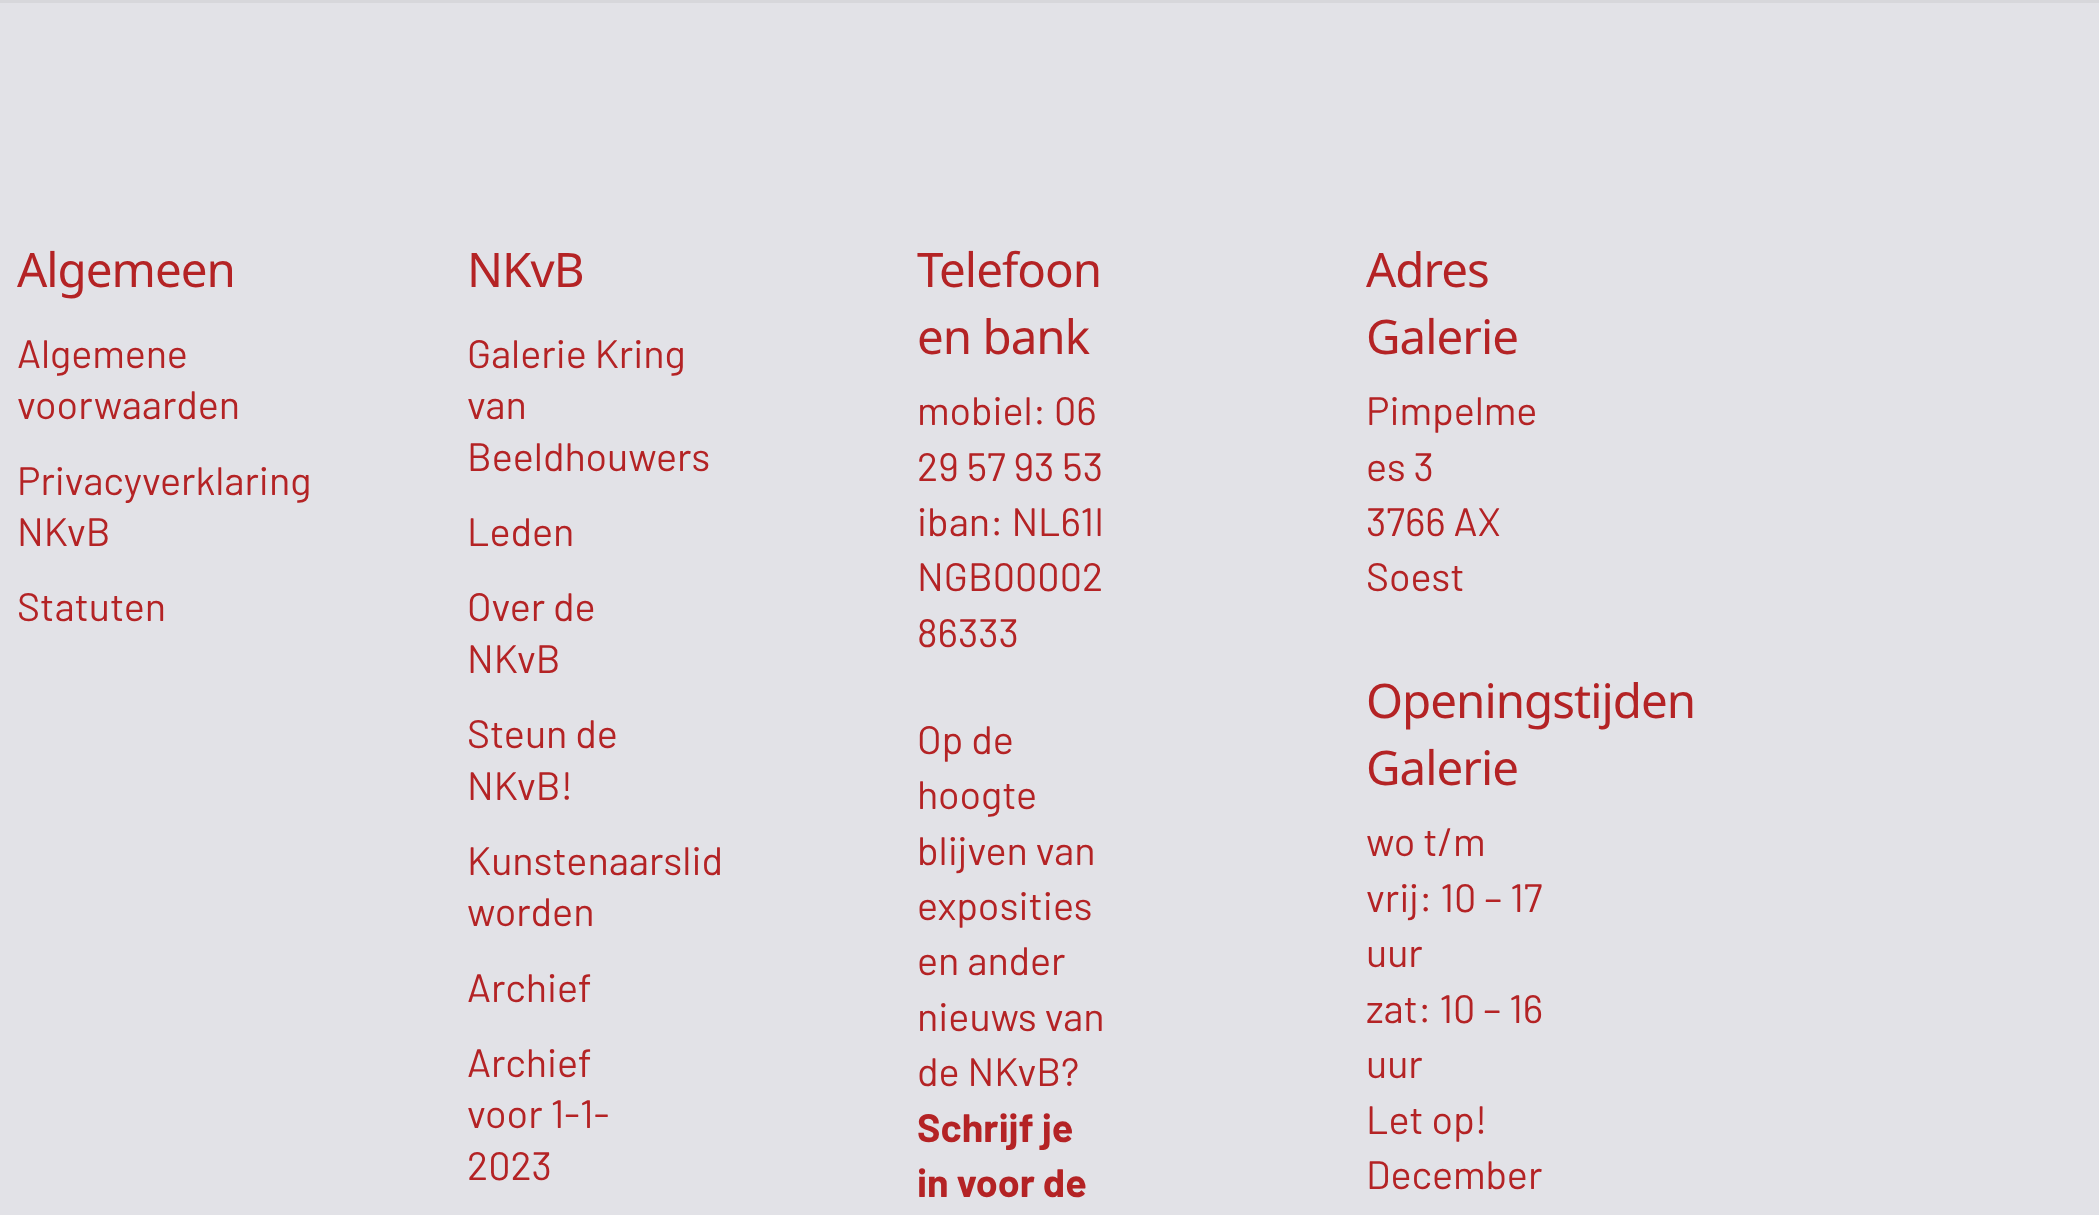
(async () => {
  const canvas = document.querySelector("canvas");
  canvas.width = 2099;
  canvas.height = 1215;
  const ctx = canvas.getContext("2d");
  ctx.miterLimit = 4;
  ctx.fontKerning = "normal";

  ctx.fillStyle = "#e2e2e7";
  ctx.fillRect(0, 0, 2099, 1215);
  ctx.fillStyle = "#d7d7db";
  ctx.fillRect(0, 0, 2099, 3);
  ctx.letterSpacing = "-1px";
  ctx.font = "47.5px Noto Sans";
  ctx.fillStyle = "#b42325";
  ctx.fillText("Algemeen", 17, 287);
  ctx.letterSpacing = "0px";
  ctx.font = "39.5px Barlow";
  for (const [text, x, y] of [
    ["Algemene", 17, 368],
    ["voorwaarden", 17, 419],
    ["Privacyverklaring", 17, 495],
    ["NKvB", 17, 546],
    ["Statuten", 17, 621],
  ]) {
    ctx.fillText(text, x, y);
  }
  ctx.letterSpacing = "-1px";
  ctx.font = "47.5px Noto Sans";
  ctx.fillText("NKvB", 467, 287);
  ctx.letterSpacing = "0px";
  ctx.font = "39.5px Barlow";
  for (const [text, x, y] of [
    ["Galerie Kring", 467, 368],
    ["van", 467, 419],
    ["Beeldhouwers", 467, 471],
    ["Leden", 467, 546],
    ["Over de", 467, 621],
    ["NKvB", 467, 673],
    ["Steun de", 467, 748],
    ["NKvB!", 467, 800],
    ["Kunstenaarslid", 467, 875],
    ["worden", 467, 926],
    ["Archief", 467, 1002],
    ["Archief", 467, 1077],
    ["voor 1-1-", 467, 1128],
    ["2023", 467, 1180],
  ]) {
    ctx.fillText(text, x, y);
  }
  ctx.letterSpacing = "-1px";
  ctx.font = "47.5px Noto Sans";
  ctx.fillText("Telefoon", 917, 287);
  ctx.fillText("en bank", 917, 354);
  ctx.letterSpacing = "0px";
  ctx.font = "39.5px Barlow";
  for (const [text, x, y] of [
    ["mobiel: 06", 917, 425],
    ["29 57 93 53", 917, 481],
    ["iban: NL61I", 917, 536],
    ["NGB00002", 917, 591],
    ["86333", 917, 647],
    ["Op de", 917, 754],
    ["hoogte", 917, 809],
    ["blijven van", 917, 865],
    ["exposities", 917, 920],
    ["en ander", 917, 975],
    ["nieuws van", 917, 1031],
    ["de NKvB?", 917, 1086],
  ]) {
    ctx.fillText(text, x, y);
  }
  ctx.font = "bold 39.5px Barlow";
  ctx.fillText("Schrijf je", 917, 1142);
  ctx.fillText("in voor de", 917, 1197);
  ctx.letterSpacing = "-1px";
  ctx.font = "47.5px Noto Sans";
  ctx.fillText("Adres", 1366, 287);
  ctx.fillText("Galerie", 1366, 354);
  ctx.letterSpacing = "0px";
  ctx.font = "39.5px Barlow";
  for (const [text, x, y] of [
    ["Pimpelme", 1366, 425],
    ["es 3", 1366, 481],
    ["3766 AX", 1366, 536],
    ["Soest", 1366, 591],
  ]) {
    ctx.fillText(text, x, y);
  }
  ctx.letterSpacing = "-1px";
  ctx.font = "47.5px Noto Sans";
  ctx.fillText("Openingstijden", 1366, 718);
  ctx.fillText("Galerie", 1366, 785);
  ctx.letterSpacing = "0px";
  ctx.font = "39.5px Barlow";
  for (const [text, x, y] of [
    ["wo t/m", 1366, 856],
    ["vrij: 10 – 17", 1366, 912],
    ["uur", 1366, 967],
    ["zat: 10 – 16", 1366, 1023],
    ["uur", 1366, 1078],
    ["Let op!", 1366, 1134],
    ["December", 1366, 1189],
  ]) {
    ctx.fillText(text, x, y);
  }
})();
